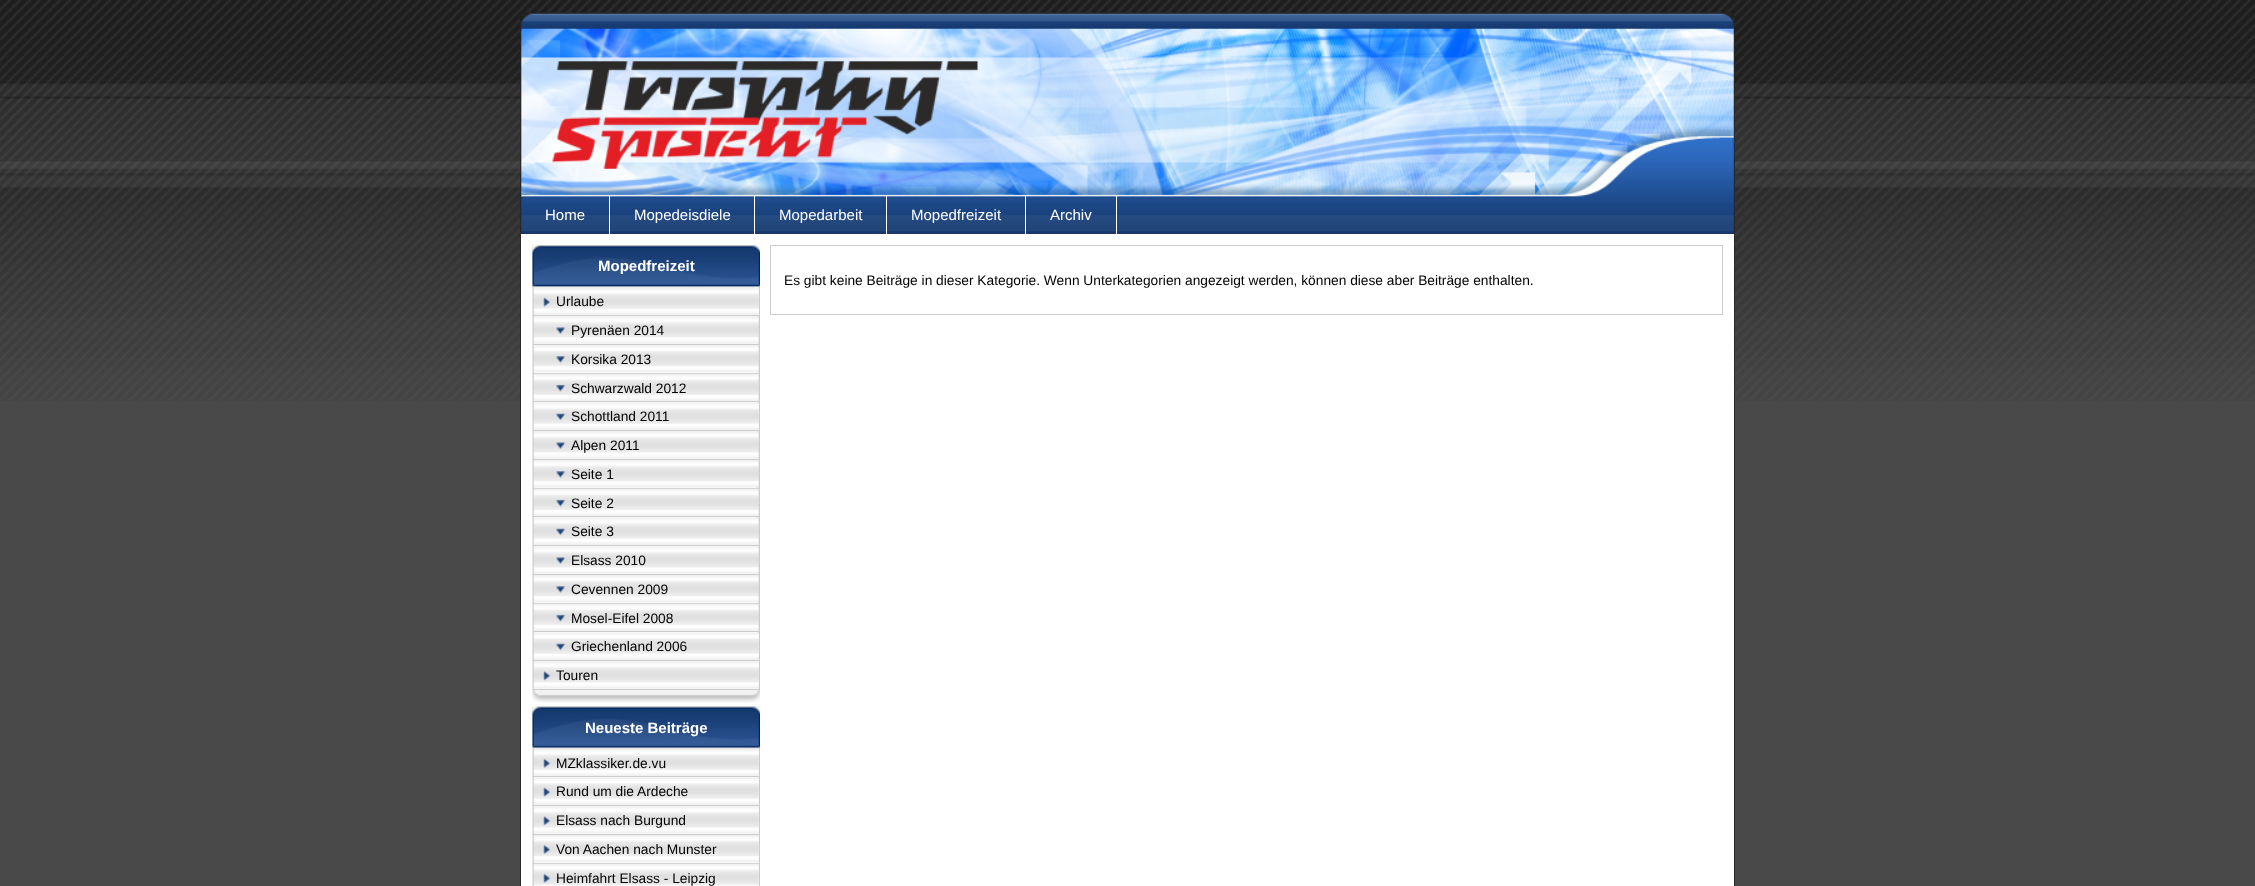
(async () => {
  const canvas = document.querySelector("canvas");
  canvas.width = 2255;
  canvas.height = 886;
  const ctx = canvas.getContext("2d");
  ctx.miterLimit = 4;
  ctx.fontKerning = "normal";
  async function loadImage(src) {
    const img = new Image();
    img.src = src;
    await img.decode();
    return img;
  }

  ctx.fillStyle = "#494949";
  ctx.fillRect(0, 0, 2255, 886);
  ctx.drawImage(await loadImage("img/1.png"), 0, 0, 2255, 401);
  ctx.drawImage(await loadImage("img/2.png"), 520, 12, 1215, 222);
  for (const [x, y, w, h, color] of [
    [609, 196, 1, 38, "#ffffff"],
    [754, 196, 1, 38, "#ffffff"],
    [886, 196, 1, 38, "#ffffff"],
    [1025, 196, 1, 38, "#ffffff"],
    [1116, 196, 1, 38, "#ffffff"],
    [521, 234, 1213, 652, "#ffffff"],
    [1734, 234, 1, 652, "#292929"],
    [520, 234, 1, 652, "#292929"],
  ]) {
    ctx.fillStyle = color;
    ctx.fillRect(x, y, w, h);
  }
  ctx.drawImage(await loadImage("img/3.png"), 532, 245, 228, 458);
  ctx.drawImage(await loadImage("img/4.png"), 532, 245, 228, 43);
  ctx.fillStyle = "#cccccc";
  ctx.fillRect(533, 288, 1, 402);
  ctx.drawImage(await loadImage("img/5.png"), 533, 288, 226, 27);
  ctx.fillRect(534, 315, 225, 1);
  ctx.fillRect(758, 316, 1, 87);
  ctx.drawImage(await loadImage("img/6.png"), 533, 316, 226, 28);
  ctx.fillRect(534, 344, 225, 1);
  ctx.drawImage(await loadImage("img/7.png"), 533, 345, 226, 28);
  ctx.fillRect(534, 373, 225, 1);
  ctx.drawImage(await loadImage("img/8.png"), 533, 373, 226, 29);
  ctx.fillRect(534, 401, 225, 1);
  ctx.drawImage(await loadImage("img/9.png"), 533, 402, 226, 28);
  ctx.fillRect(534, 430, 225, 1);
  ctx.fillRect(758, 431, 1, 202);
  ctx.drawImage(await loadImage("img/6.png"), 533, 431, 226, 28);
  ctx.fillRect(534, 459, 225, 1);
  ctx.fillRect(756, 487, 1, 2);
  ctx.drawImage(await loadImage("img/10.png"), 533, 460, 226, 28);
  ctx.fillRect(534, 488, 225, 1);
  ctx.fillRect(756, 517, 1, 1);
  ctx.drawImage(await loadImage("img/11.png"), 533, 488, 226, 29);
  ctx.fillRect(534, 516, 225, 1);
  ctx.drawImage(await loadImage("img/12.png"), 533, 517, 226, 28);
  ctx.fillRect(534, 545, 225, 1);
  ctx.drawImage(await loadImage("img/6.png"), 533, 546, 226, 28);
  ctx.fillRect(534, 574, 225, 1);
  ctx.drawImage(await loadImage("img/13.png"), 533, 575, 226, 28);
  ctx.fillRect(534, 603, 225, 1);
  ctx.drawImage(await loadImage("img/8.png"), 533, 603, 226, 29);
  ctx.fillRect(534, 631, 225, 1);
  ctx.drawImage(await loadImage("img/9.png"), 533, 632, 226, 28);
  ctx.fillRect(534, 660, 225, 1);
  ctx.drawImage(await loadImage("img/14.png"), 533, 661, 226, 28);
  ctx.fillRect(534, 689, 225, 1);
  ctx.drawImage(await loadImage("img/15.png"), 532, 706, 228, 180);
  ctx.drawImage(await loadImage("img/16.png"), 532, 706, 228, 43);
  ctx.fillRect(533, 749, 1, 137);
  ctx.drawImage(await loadImage("img/17.png"), 533, 749, 226, 27);
  ctx.fillRect(534, 776, 225, 1);
  ctx.drawImage(await loadImage("img/18.png"), 533, 777, 226, 28);
  ctx.fillRect(534, 805, 225, 1);
  ctx.drawImage(await loadImage("img/19.png"), 533, 806, 226, 28);
  ctx.fillRect(534, 834, 225, 1);
  ctx.drawImage(await loadImage("img/20.png"), 533, 835, 226, 28);
  ctx.fillRect(534, 863, 225, 1);
  ctx.drawImage(await loadImage("img/21.png"), 533, 863, 226, 23);
  ctx.strokeStyle = "#cccccc";
  ctx.strokeRect(770.5, 245.5, 952, 69);
  ctx.font = "15px Liberation Sans";
  ctx.fillStyle = "#ffffff";
  for (const [text, x, y] of [
    ["Home", 545, 220],
    ["Mopedeisdiele", 634, 220],
    ["Mopedarbeit", 779, 220],
    ["Mopedfreizeit", 911, 220],
    ["Archiv", 1050, 220],
  ]) {
    ctx.fillText(text, x, y);
  }
  ctx.font = "bold 15px Liberation Sans";
  ctx.fillText("Mopedfreizeit", 598, 271);
  ctx.font = "13.75px Liberation Sans";
  ctx.fillStyle = "#000000";
  for (const [text, x, y] of [
    ["Urlaube", 556, 306],
    ["Pyrenäen 2014", 571, 335],
    ["Korsika 2013", 571, 364],
    ["Schwarzwald 2012", 571, 393],
    ["Schottland 2011", 571, 421],
    ["Alpen 2011", 571, 450],
    ["Seite 1", 571, 479],
    ["Seite 2", 571, 508],
    ["Seite 3", 571, 536],
    ["Elsass 2010", 571, 565],
    ["Cevennen 2009", 571, 594],
    ["Mosel-Eifel 2008", 571, 623],
    ["Griechenland 2006", 571, 651],
    ["Touren", 556, 680],
  ]) {
    ctx.fillText(text, x, y);
  }
  ctx.font = "bold 15px Liberation Sans";
  ctx.fillStyle = "#ffffff";
  ctx.fillText("Neueste Beiträge", 585, 733);
  ctx.font = "13.75px Liberation Sans";
  ctx.fillStyle = "#000000";
  for (const [text, x, y] of [
    ["MZklassiker.de.vu", 556, 768],
    ["Rund um die Ardeche", 556, 796],
    ["Elsass nach Burgund", 556, 825],
    ["Von Aachen nach Munster", 556, 854],
    ["Heimfahrt Elsass - Leipzig", 556, 883],
    ["Es gibt keine Beiträge in dieser Kategorie. Wenn Unterkategorien angezeigt werden, können diese aber Beiträge enthalten.", 784, 285],
  ]) {
    ctx.fillText(text, x, y);
  }
})();
